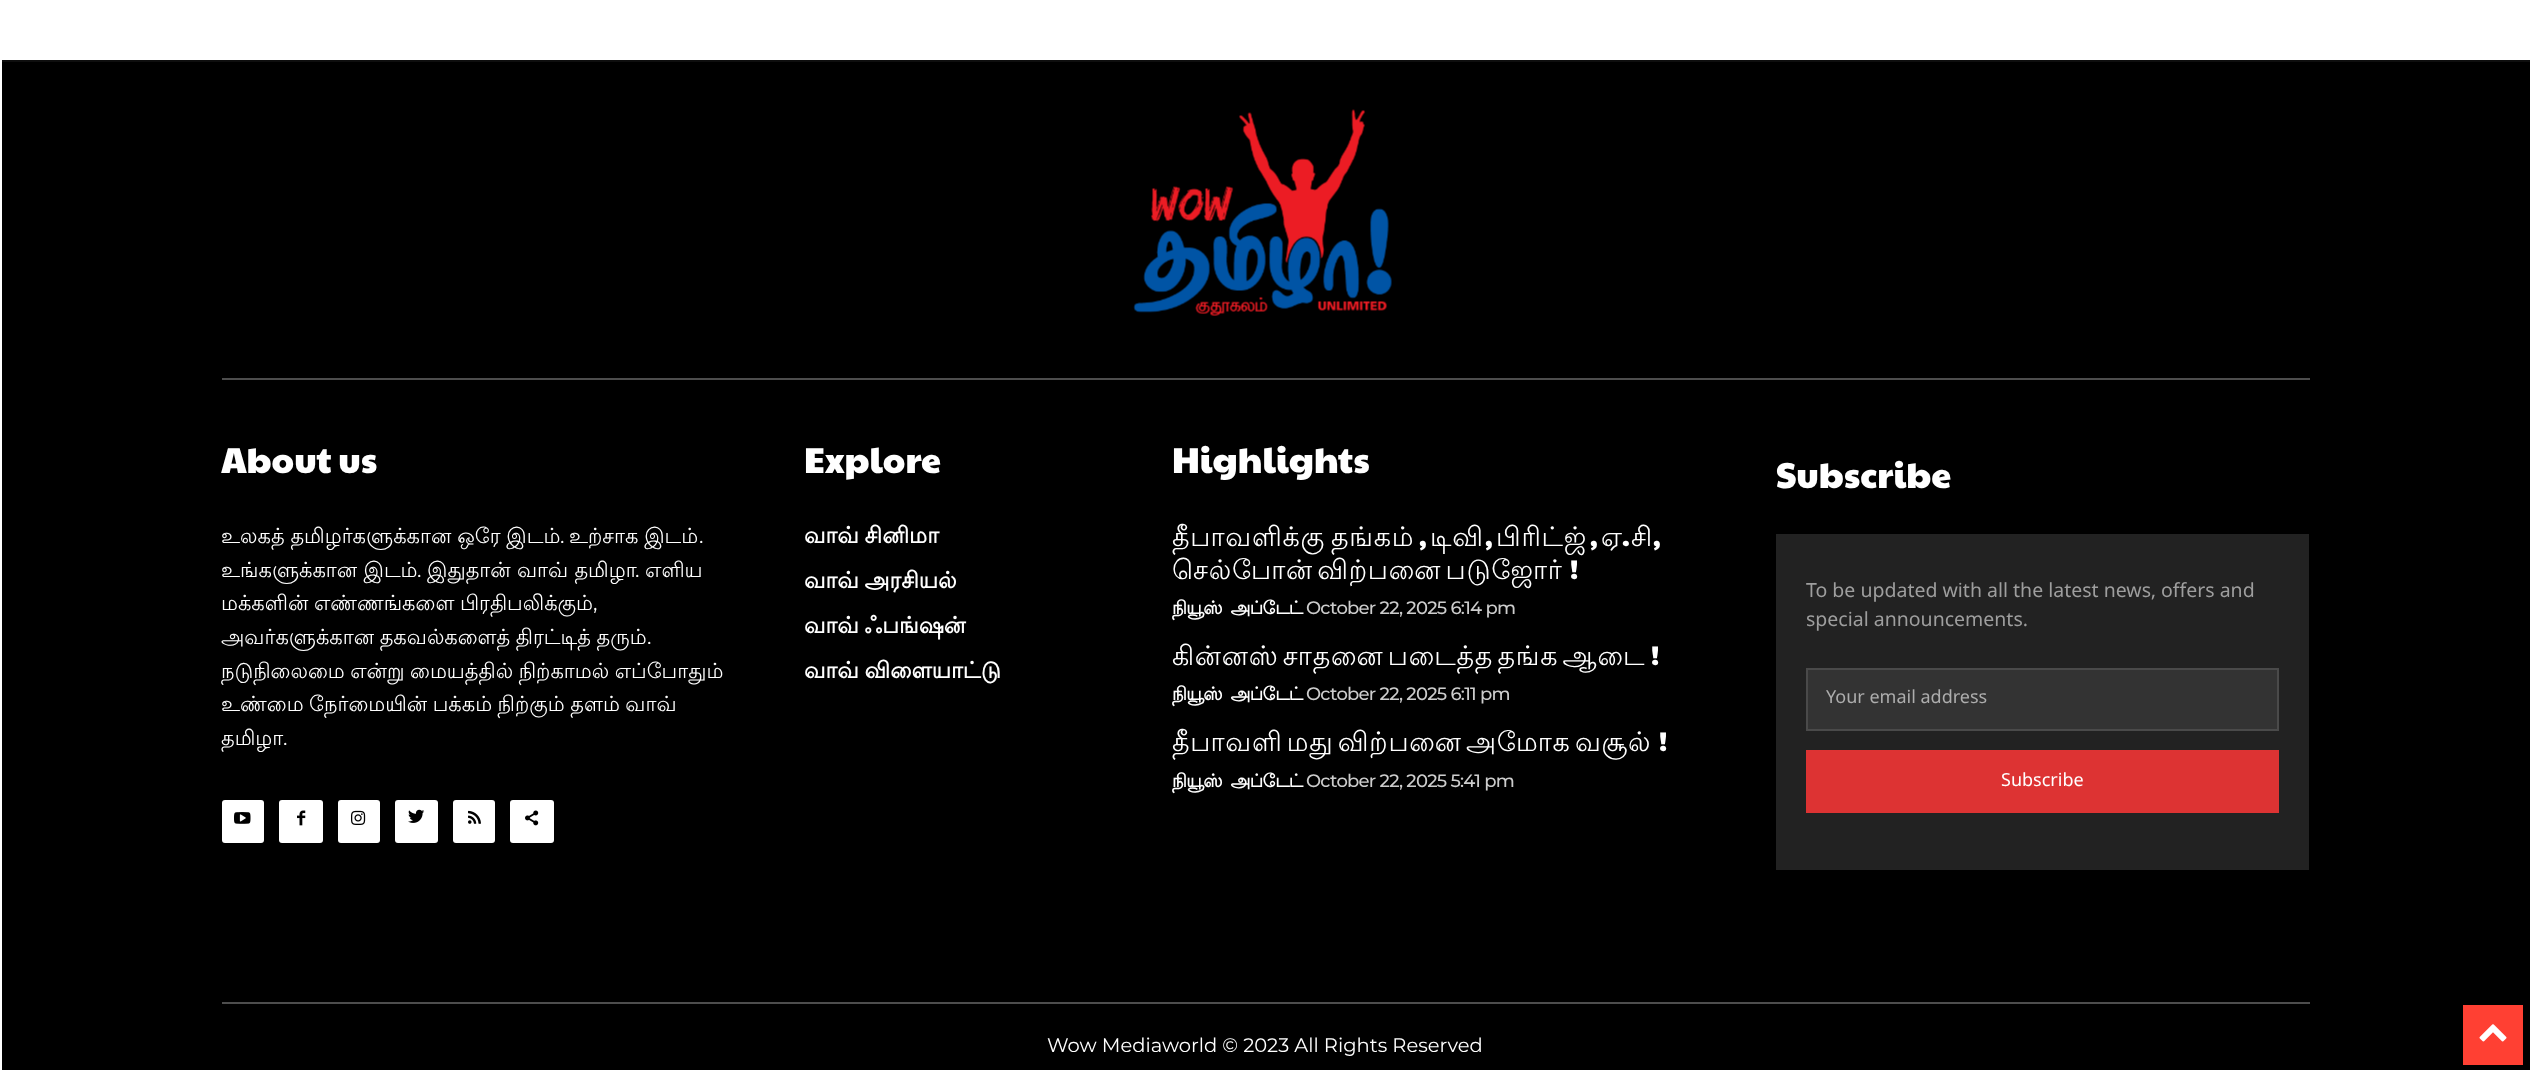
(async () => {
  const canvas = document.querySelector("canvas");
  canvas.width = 2530;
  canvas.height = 1070;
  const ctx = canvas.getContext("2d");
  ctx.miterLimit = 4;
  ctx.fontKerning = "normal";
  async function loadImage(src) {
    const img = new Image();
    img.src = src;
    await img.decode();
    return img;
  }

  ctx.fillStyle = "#ffffff";
  ctx.fillRect(0, 0, 2530, 1070);
  for (const [x, y, w, h, color] of [
    [2, 62, 2528, 1008, "#000000"],
    [2, 60, 2528, 2, "#0e0e0e"],
    [222, 378, 2088, 2, "#4d4d4d"],
  ]) {
    ctx.fillStyle = color;
    ctx.fillRect(x, y, w, h);
  }
  ctx.drawImage(await loadImage("img/1.png"), 1133, 109, 259, 207);
  ctx.fillStyle = "#ffffff";
  ctx.beginPath();
  ctx.roundRect(222, 800, 42, 43, 3);
  ctx.fill();
  ctx.drawImage(await loadImage("img/2.png"), 234, 812, 17, 12);
  ctx.beginPath();
  ctx.roundRect(279, 800, 44, 43, 3);
  ctx.fill();
  ctx.drawImage(await loadImage("img/3.png"), 297, 810, 9, 16);
  ctx.beginPath();
  ctx.roundRect(338, 800, 42, 43, 3);
  ctx.fill();
  ctx.drawImage(await loadImage("img/4.png"), 351, 810, 15, 15);
  ctx.beginPath();
  ctx.roundRect(395, 800, 43, 43, 3);
  ctx.fill();
  ctx.drawImage(await loadImage("img/5.png"), 408, 809, 17, 14);
  ctx.beginPath();
  ctx.roundRect(453, 800, 42, 43, 3);
  ctx.fill();
  ctx.drawImage(await loadImage("img/6.png"), 468, 810, 13, 14);
  ctx.beginPath();
  ctx.roundRect(510, 800, 44, 43, 3);
  ctx.fill();
  ctx.drawImage(await loadImage("img/7.png"), 525, 810, 14, 16);
  ctx.fillStyle = "#222222";
  ctx.fillRect(1776, 534, 533, 336);
  ctx.fillStyle = "#333333";
  ctx.beginPath();
  ctx.rect(1807, 669, 471, 61);
  ctx.fill();
  ctx.strokeStyle = "#4a4a4a";
  ctx.lineWidth = 2;
  ctx.stroke();
  for (const [x, y, w, h, color] of [
    [1806, 750, 473, 63, "#dd3333"],
    [222, 1002, 2088, 2, "#4d4d4d"],
    [2463, 1005, 60, 60, "#ff4033"],
  ]) {
    ctx.fillStyle = color;
    ctx.fillRect(x, y, w, h);
  }
  ctx.drawImage(await loadImage("img/8.png"), 2479, 1024, 28, 18);
  ctx.font = "36px Paytone One";
  ctx.fillStyle = "#ffffff";
  ctx.fillText("About us", 221, 473);
  ctx.wordSpacing = "-0.5px";
  ctx.font = "21px Lohit Tamil";
  ctx.fillText("உலகத் தமிழர்களுக்கான ஒரே இடம்", 221, 543);
  ctx.wordSpacing = "0px";
  ctx.font = "21px Montserrat";
  ctx.fillText(".", 560, 543);
  ctx.wordSpacing = "-0.5px";
  ctx.font = "21px Lohit Tamil";
  ctx.fillText("உற்சாக இடம்", 569, 543);
  ctx.wordSpacing = "0px";
  ctx.font = "21px Montserrat";
  ctx.fillText(".", 699, 543);
  ctx.font = "21px Lohit Tamil";
  ctx.fillText("உங்களுக்கான இடம்", 221, 577);
  ctx.font = "21px Montserrat";
  ctx.fillText(".", 417, 577);
  ctx.font = "21px Lohit Tamil";
  ctx.fillText("இதுதான் வாவ் தமிழா", 427, 577);
  ctx.font = "21px Montserrat";
  ctx.fillText(".", 635, 577);
  ctx.font = "21px Lohit Tamil";
  ctx.fillText("எளிய", 645, 577);
  ctx.wordSpacing = "-0.75px";
  ctx.fillText("மக்களின் எண்ணங்களை பிரதிபலிக்கும்", 221, 610);
  ctx.wordSpacing = "0px";
  ctx.font = "21px Montserrat";
  ctx.fillText(",", 593, 610);
  ctx.wordSpacing = "-0.75px";
  ctx.font = "21px Lohit Tamil";
  ctx.fillText("அவர்களுக்கான தகவல்களைத் திரட்டித் தரும்", 221, 644);
  ctx.wordSpacing = "0px";
  ctx.font = "21px Montserrat";
  ctx.fillText(".", 647, 644);
  ctx.wordSpacing = "-0.75px";
  ctx.font = "21px Lohit Tamil";
  ctx.fillText("நடுநிலைமை என்று மையத்தில் நிற்காமல் எப்போதும்", 221, 678);
  ctx.fillText("உண்மை நேர்மையின் பக்கம் நிற்கும் தளம் வாவ்", 221, 711);
  ctx.wordSpacing = "0px";
  ctx.fillText("தமிழா", 221, 745);
  ctx.font = "21px Montserrat";
  ctx.fillText(".", 283, 745);
  ctx.font = "36px Paytone One";
  ctx.fillText("Explore", 804, 473);
  ctx.wordSpacing = "-1px";
  ctx.font = "bold 22.5px Lohit Tamil";
  for (const [text, x, y] of [
    ["வாவ் சினிமா", 804, 543],
    ["வாவ் அரசியல்", 804, 588],
    ["வாவ் ஃபங்ஷன்", 804, 633],
    ["வாவ் விளையாட்டு", 804, 678],
  ]) {
    ctx.fillText(text, x, y);
  }
  ctx.wordSpacing = "0px";
  ctx.font = "36px Paytone One";
  ctx.fillText("Highlights", 1172, 473);
  ctx.letterSpacing = "0.75px";
  ctx.wordSpacing = "-3px";
  ctx.font = "27px Lohit Tamil";
  ctx.fillText("தீபாவளிக்கு தங்கம்", 1172, 546);
  ctx.wordSpacing = "0px";
  ctx.font = "27px Paytone One";
  ctx.fillText(",", 1419, 546);
  ctx.font = "27px Lohit Tamil";
  ctx.fillText("டிவி", 1430, 546);
  ctx.font = "27px Paytone One";
  ctx.fillText(",", 1485, 546);
  ctx.font = "27px Lohit Tamil";
  ctx.fillText("பிரிட்ஜ்", 1496, 546);
  ctx.font = "27px Paytone One";
  ctx.fillText(",", 1590, 546);
  ctx.font = "27px Lohit Tamil";
  ctx.fillText("ஏ", 1601, 546);
  ctx.font = "27px Paytone One";
  ctx.fillText(".", 1622, 546);
  ctx.font = "27px Lohit Tamil";
  ctx.fillText("சி", 1631, 546);
  ctx.font = "27px Paytone One";
  ctx.fillText(",", 1653, 546);
  ctx.wordSpacing = "-4.5px";
  ctx.font = "27px Lohit Tamil";
  ctx.fillText("செல்போன் விற்பனை படுஜோர்", 1172, 579);
  ctx.wordSpacing = "0px";
  ctx.font = "27px Paytone One";
  ctx.fillText("!", 1570, 579);
  ctx.letterSpacing = "-0.75px";
  ctx.wordSpacing = "4px";
  ctx.font = "bold 18px Lohit Tamil";
  ctx.fillText("நியூஸ் அப்டேட்", 1172, 614);
  ctx.wordSpacing = "0px";
  ctx.font = "500 18px Montserrat";
  ctx.fillStyle = "#cccccc";
  ctx.fillText("October 22, 2025 6:14 pm", 1306, 614);
  ctx.letterSpacing = "0.75px";
  ctx.wordSpacing = "-4.5px";
  ctx.font = "27px Lohit Tamil";
  ctx.fillStyle = "#ffffff";
  ctx.fillText("கின்னஸ் சாதனை படைத்த தங்க ஆடை", 1172, 665);
  ctx.wordSpacing = "0px";
  ctx.font = "27px Paytone One";
  ctx.fillText("!", 1651, 665);
  ctx.letterSpacing = "-0.75px";
  ctx.wordSpacing = "4px";
  ctx.font = "bold 18px Lohit Tamil";
  ctx.fillText("நியூஸ் அப்டேட்", 1172, 700);
  ctx.wordSpacing = "0px";
  ctx.font = "500 18px Montserrat";
  ctx.fillStyle = "#cccccc";
  ctx.fillText("October 22, 2025 6:11 pm", 1306, 700);
  ctx.letterSpacing = "0.75px";
  ctx.wordSpacing = "-4.5px";
  ctx.font = "27px Lohit Tamil";
  ctx.fillStyle = "#ffffff";
  ctx.fillText("தீபாவளி மது விற்பனை அமோக வசூல்", 1172, 751);
  ctx.wordSpacing = "0px";
  ctx.font = "27px Paytone One";
  ctx.fillText("!", 1659, 751);
  ctx.letterSpacing = "-0.75px";
  ctx.wordSpacing = "4px";
  ctx.font = "bold 18px Lohit Tamil";
  ctx.fillText("நியூஸ் அப்டேட்", 1172, 787);
  ctx.wordSpacing = "0px";
  ctx.font = "500 18px Montserrat";
  ctx.fillStyle = "#cccccc";
  ctx.fillText("October 22, 2025 5:41 pm", 1306, 787);
  ctx.letterSpacing = "0px";
  ctx.font = "36px Paytone One";
  ctx.fillStyle = "#ffffff";
  ctx.fillText("Subscribe", 1776, 488);
  ctx.font = "19.5px Noto Sans Tamil";
  ctx.fillStyle = "#9e9e9e";
  ctx.fillText("To be updated with all the latest news, offers and", 1806, 597);
  ctx.fillText("special announcements.", 1806, 626);
  ctx.font = "18px Noto Sans Tamil";
  ctx.fillStyle = "#adadad";
  ctx.fillText("Your email address", 1826, 703);
  ctx.fillStyle = "#ffffff";
  ctx.fillText("Subscribe", 2001, 786);
  ctx.font = "19.5px Montserrat";
  ctx.fillText("Wow Mediaworld © 2023 All Rights Reserved", 1047, 1052);
})();
